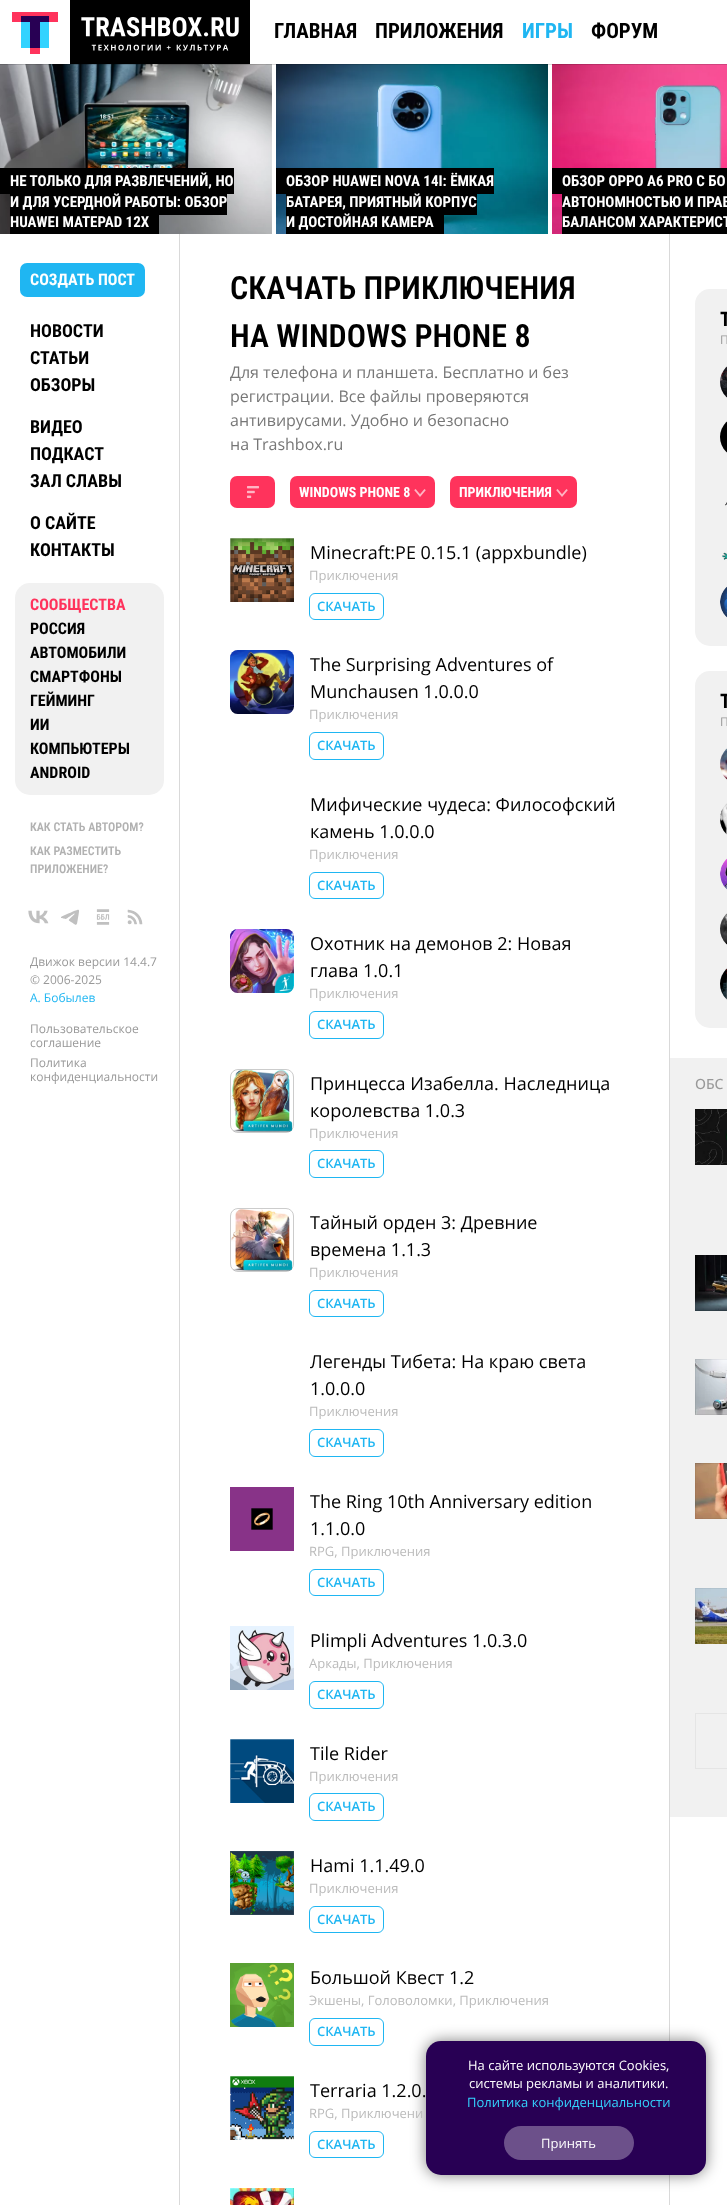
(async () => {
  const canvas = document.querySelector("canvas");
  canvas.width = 727;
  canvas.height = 2205;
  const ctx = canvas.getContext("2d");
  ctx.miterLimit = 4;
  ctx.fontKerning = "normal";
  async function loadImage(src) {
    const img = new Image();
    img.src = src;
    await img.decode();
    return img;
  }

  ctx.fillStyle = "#ffffff";
  ctx.fillRect(0, 0, 727, 2205);
  for (const [x, y, w, h, color] of [
    [12, 12, 46, 10, "#ff335c"],
    [21, 16, 28, 6, "#280054"],
    [30, 22, 10, 32, "#ff335c"],
    [21, 22, 28, 26, "#33d3ff"],
    [30, 22, 10, 26, "#280054"],
    [70, 0, 180, 64, "#000000"],
  ]) {
    ctx.fillStyle = color;
    ctx.fillRect(x, y, w, h);
  }
  ctx.drawImage(await loadImage("img/1.png"), 81, 17, 158, 34);
  ctx.drawImage(await loadImage("img/2.png"), 0, 64, 272, 170);
  ctx.drawImage(await loadImage("img/3.png"), 276, 64, 272, 170);
  ctx.drawImage(await loadImage("img/4.png"), 552, 64, 175, 170);
  for (const [x, y, w, h, color] of [
    [0, 64, 727, 1, "rgba(0, 0, 0, 0.15)"],
    [0, 168, 234, 26, "#000000"],
    [10, 194, 217, 21, "#000000"],
    [10, 215, 149, 19, "#000000"],
    [276, 168, 218, 26, "#000000"],
    [286, 194, 191, 21, "#000000"],
    [286, 215, 158, 19, "#000000"],
    [552, 168, 175, 26, "#000000"],
    [562, 194, 165, 40, "#000000"],
    [179, 234, 1, 1971, "#d9d9d9"],
  ]) {
    ctx.fillStyle = color;
    ctx.fillRect(x, y, w, h);
  }
  ctx.fillStyle = "#1fb6f2";
  ctx.beginPath();
  ctx.roundRect(20, 263, 125, 34, 7);
  ctx.fill();
  ctx.fillStyle = "#f1f1f1";
  ctx.beginPath();
  ctx.roundRect(15, 583, 149, 212, 15);
  ctx.fill();
  ctx.drawImage(await loadImage("img/5.png"), 28, 910, 21, 14);
  ctx.drawImage(await loadImage("img/6.png"), 61, 909, 18, 16);
  ctx.drawImage(await loadImage("img/7.png"), 96, 909, 14, 16);
  ctx.drawImage(await loadImage("img/8.png"), 127, 909, 16, 16);
  ctx.fillStyle = "#d9d9d9";
  ctx.fillRect(669, 234, 1, 1971);
  ctx.fillStyle = "#ff335c";
  ctx.beginPath();
  ctx.roundRect(230, 476, 45, 32, 7);
  ctx.fill();
  ctx.drawImage(await loadImage("img/9.png"), 247, 486, 12, 12);
  ctx.beginPath();
  ctx.roundRect(290, 476, 145, 32, 7);
  ctx.fill();
  ctx.drawImage(await loadImage("img/10.png"), 414, 489, 12, 8);
  ctx.beginPath();
  ctx.roundRect(450, 476, 127, 32, 7);
  ctx.fill();
  ctx.drawImage(await loadImage("img/10.png"), 556, 489, 12, 8);
  ctx.drawImage(await loadImage("img/11.png"), 230, 538, 64, 64);
  ctx.beginPath();
  ctx.roundRect(309.5, 593.5, 74, 26, 5.5);
  ctx.strokeStyle = "#1fb6f2";
  ctx.stroke();
  ctx.beginPath();
  ctx.roundRect(230.5, 650.5, 63, 63, 7.5);
  ctx.strokeStyle = "#cccccc";
  ctx.stroke();
  ctx.drawImage(await loadImage("img/12.png"), 230, 650, 64, 64);
  ctx.beginPath();
  ctx.roundRect(309.5, 732.5, 74, 27, 5.5);
  ctx.strokeStyle = "#1fb6f2";
  ctx.stroke();
  ctx.beginPath();
  ctx.roundRect(309.5, 872.5, 74, 26, 5.5);
  ctx.stroke();
  ctx.beginPath();
  ctx.roundRect(230.5, 929.5, 63, 63, 7.5);
  ctx.strokeStyle = "#cccccc";
  ctx.stroke();
  ctx.drawImage(await loadImage("img/13.png"), 230, 929, 64, 64);
  ctx.beginPath();
  ctx.roundRect(309.5, 1011.5, 74, 27, 5.5);
  ctx.strokeStyle = "#1fb6f2";
  ctx.stroke();
  ctx.beginPath();
  ctx.roundRect(230.5, 1069.5, 63, 63, 7.5);
  ctx.strokeStyle = "#cccccc";
  ctx.stroke();
  ctx.drawImage(await loadImage("img/14.png"), 231, 1069, 62, 63);
  ctx.beginPath();
  ctx.roundRect(309.5, 1150.5, 74, 27, 5.5);
  ctx.strokeStyle = "#1fb6f2";
  ctx.stroke();
  ctx.beginPath();
  ctx.roundRect(230.5, 1208.5, 63, 63, 7.5);
  ctx.strokeStyle = "#cccccc";
  ctx.stroke();
  ctx.drawImage(await loadImage("img/15.png"), 231, 1209, 62, 62);
  ctx.beginPath();
  ctx.roundRect(309.5, 1290.5, 74, 26, 5.5);
  ctx.strokeStyle = "#1fb6f2";
  ctx.stroke();
  ctx.beginPath();
  ctx.roundRect(309.5, 1429.5, 74, 27, 5.5);
  ctx.stroke();
  ctx.fillStyle = "#883388";
  ctx.fillRect(230, 1487, 64, 64);
  ctx.drawImage(await loadImage("img/16.png"), 251, 1508, 22, 22);
  ctx.beginPath();
  ctx.roundRect(309.5, 1569.5, 74, 26, 5.5);
  ctx.stroke();
  ctx.drawImage(await loadImage("img/17.png"), 230, 1626, 64, 64);
  ctx.beginPath();
  ctx.roundRect(309.5, 1681.5, 74, 27, 5.5);
  ctx.stroke();
  ctx.drawImage(await loadImage("img/18.png"), 230, 1739, 64, 64);
  ctx.beginPath();
  ctx.roundRect(309.5, 1793.5, 74, 27, 5.5);
  ctx.stroke();
  ctx.drawImage(await loadImage("img/19.png"), 230, 1851, 64, 64);
  ctx.beginPath();
  ctx.roundRect(309.5, 1906.5, 74, 26, 5.5);
  ctx.stroke();
  ctx.drawImage(await loadImage("img/20.png"), 230, 1963, 64, 64);
  ctx.beginPath();
  ctx.roundRect(309.5, 2018.5, 74, 27, 5.5);
  ctx.stroke();
  ctx.drawImage(await loadImage("img/21.png"), 230, 2076, 64, 64);
  ctx.beginPath();
  ctx.roundRect(309.5, 2131.5, 74, 26, 5.5);
  ctx.stroke();
  ctx.drawImage(await loadImage("img/22.png"), 230, 2188, 64, 17);
  ctx.fillStyle = "#f1f1f1";
  ctx.beginPath();
  ctx.roundRect(695, 289, 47, 357, 15);
  ctx.fill();
  ctx.drawImage(await loadImage("img/23.png"), 720, 366, 7, 32);
  ctx.drawImage(await loadImage("img/24.png"), 720, 421, 7, 32);
  ctx.drawImage(await loadImage("img/25.png"), 725, 502, 2, 4);
  ctx.drawImage(await loadImage("img/26.png"), 722, 552, 5, 8);
  ctx.drawImage(await loadImage("img/27.png"), 720, 586, 7, 32);
  ctx.beginPath();
  ctx.roundRect(695, 671, 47, 357, 15);
  ctx.fill();
  ctx.drawImage(await loadImage("img/28.png"), 720, 748, 7, 32);
  ctx.drawImage(await loadImage("img/29.png"), 720, 803, 7, 32);
  ctx.drawImage(await loadImage("img/30.png"), 720, 858, 7, 32);
  ctx.drawImage(await loadImage("img/31.png"), 720, 913, 7, 32);
  ctx.drawImage(await loadImage("img/32.png"), 720, 968, 7, 32);
  ctx.fillRect(670, 1058, 57, 759);
  ctx.drawImage(await loadImage("img/33.png"), 695, 1109, 32, 56);
  ctx.strokeStyle = "rgba(0, 0, 0, 0.05)";
  ctx.strokeRect(695.5, 1109.5, 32, 55);
  ctx.drawImage(await loadImage("img/34.png"), 695, 1255, 32, 56);
  ctx.strokeRect(695.5, 1255.5, 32, 55);
  ctx.drawImage(await loadImage("img/35.png"), 695, 1359, 32, 56);
  ctx.strokeRect(695.5, 1359.5, 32, 55);
  ctx.drawImage(await loadImage("img/36.png"), 695, 1463, 32, 56);
  ctx.strokeRect(695.5, 1463.5, 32, 55);
  ctx.drawImage(await loadImage("img/37.png"), 695, 1588, 32, 56);
  ctx.strokeRect(695.5, 1588.5, 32, 55);
  ctx.strokeStyle = "#e5e5e5";
  ctx.strokeRect(695.5, 1713.5, 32, 55);
  ctx.fillStyle = "rgba(0, 0, 0, 0.5)";
  ctx.filter = "blur(7.5px)";
  ctx.beginPath();
  ctx.roundRect(426, 2041, 280, 134, 15);
  ctx.fill();
  ctx.filter = "none";
  ctx.fillStyle = "#280054";
  ctx.beginPath();
  ctx.roundRect(426, 2041, 280, 134, 15);
  ctx.fill();
  ctx.fillStyle = "#6c508a";
  ctx.beginPath();
  ctx.roundRect(504, 2126, 130, 34, 17);
  ctx.fill();
  ctx.font = "bold 21px Roboto Condensed";
  ctx.fillStyle = "#000000";
  ctx.fillText("ГЛАВНАЯ", 274, 38);
  ctx.fillText("ПРИЛОЖЕНИЯ", 375, 38);
  ctx.fillStyle = "#1fb6f2";
  ctx.fillText("ИГРЫ", 522, 38);
  ctx.fillStyle = "#000000";
  ctx.fillText("ФОРУМ", 591, 38);
  ctx.font = "bold 15px Roboto Condensed";
  ctx.fillStyle = "#ffffff";
  for (const [text, x, y] of [
    ["НЕ ТОЛЬКО ДЛЯ РАЗВЛЕЧЕНИЙ, НО", 10, 186],
    ["И ДЛЯ УСЕРДНОЙ РАБОТЫ: ОБЗОР", 10, 207],
    ["HUAWEI MATEPAD 12X", 10, 227],
    ["ОБЗОР HUAWEI NOVA 14I: ЁМКАЯ", 286, 186],
    ["БАТАРЕЯ, ПРИЯТНЫЙ КОРПУС", 286, 207],
    ["И ДОСТОЙНАЯ КАМЕРА", 286, 227],
    ["ОБЗОР OPPO A6 PRO С БО", 562, 186],
    ["АВТОНОМНОСТЬЮ И ПРАВ", 562, 207],
    ["БАЛАНСОМ ХАРАКТЕРИСТ", 562, 227],
  ]) {
    ctx.fillText(text, x, y);
  }
  ctx.font = "bold 16px Roboto Condensed";
  ctx.fillText("СОЗДАТЬ ПОСТ", 30, 285);
  ctx.font = "bold 18px Roboto Condensed";
  ctx.fillStyle = "#000000";
  for (const [text, x, y] of [
    ["НОВОСТИ", 30, 337],
    ["СТАТЬИ", 30, 364],
    ["ОБЗОРЫ", 30, 391],
    ["ВИДЕО", 30, 433],
    ["ПОДКАСТ", 30, 460],
    ["ЗАЛ СЛАВЫ", 30, 487],
    ["О САЙТЕ", 30, 529],
    ["КОНТАКТЫ", 30, 556],
  ]) {
    ctx.fillText(text, x, y);
  }
  ctx.font = "bold 16px Roboto Condensed";
  ctx.fillStyle = "#ff335c";
  ctx.fillText("СООБЩЕСТВА", 30, 610);
  ctx.fillStyle = "#000000";
  for (const [text, x, y] of [
    ["РОССИЯ", 30, 634],
    ["АВТОМОБИЛИ", 30, 658],
    ["СМАРТФОНЫ", 30, 682],
    ["ГЕЙМИНГ", 30, 706],
    ["ИИ", 30, 730],
    ["КОМПЬЮТЕРЫ", 30, 754],
    ["ANDROID", 30, 778],
  ]) {
    ctx.fillText(text, x, y);
  }
  ctx.font = "600 12px Roboto Condensed";
  ctx.fillStyle = "#b1b1b1";
  for (const [text, x, y] of [
    ["КАК СТАТЬ АВТОРОМ?", 30, 831],
    ["КАК РАЗМЕСТИТЬ", 30, 855],
    ["ПРИЛОЖЕНИЕ?", 30, 873],
  ]) {
    ctx.fillText(text, x, y);
  }
  ctx.font = "12px Open Sans";
  ctx.fillStyle = "#999999";
  ctx.fillText("Движок версии 14.4.7", 30, 966);
  ctx.fillText("© 2006-2025", 30, 984);
  ctx.fillStyle = "#1fb6f2";
  ctx.fillText("А. Бобылев", 30, 1002);
  ctx.fillStyle = "#999999";
  for (const [text, x, y] of [
    ["Пользовательское", 30, 1033],
    ["соглашение", 30, 1047],
    ["Политика", 30, 1067],
    ["конфиденциальности", 30, 1081],
  ]) {
    ctx.fillText(text, x, y);
  }
  ctx.font = "600 32px Roboto Condensed";
  ctx.fillStyle = "#000000";
  ctx.fillText("СКАЧАТЬ ПРИКЛЮЧЕНИЯ", 230, 299);
  ctx.fillText("НА WINDOWS PHONE 8", 230, 347);
  ctx.font = "16px Open Sans";
  ctx.fillStyle = "#777777";
  for (const [text, x, y] of [
    ["Для телефона и планшета. Бесплатно и без", 230, 378],
    ["регистрации. Все файлы проверяются", 230, 402],
    ["антивирусами. Удобно и безопасно", 230, 426],
    ["на Trashbox.ru", 230, 450],
  ]) {
    ctx.fillText(text, x, y);
  }
  ctx.font = "bold 14px Roboto Condensed";
  ctx.fillStyle = "#ffffff";
  ctx.fillText("WINDOWS PHONE 8", 299, 497);
  ctx.fillText("ПРИКЛЮЧЕНИЯ", 459, 497);
  ctx.font = "18px Open Sans";
  ctx.fillStyle = "#000000";
  ctx.fillText("Minecraft:PE 0.15.1 (appxbundle)", 310, 559);
  ctx.font = "13px Open Sans";
  ctx.fillStyle = "#bbbbbb";
  ctx.fillText("Приключения", 309, 580);
  ctx.font = "600 13px Open Sans";
  ctx.fillStyle = "#1fb6f2";
  ctx.fillText("СКАЧАТЬ", 317, 611);
  ctx.font = "18px Open Sans";
  ctx.fillStyle = "#000000";
  ctx.fillText("The Surprising Adventures of", 310, 671);
  ctx.fillText("Munchausen 1.0.0.0", 310, 698);
  ctx.font = "13px Open Sans";
  ctx.fillStyle = "#bbbbbb";
  ctx.fillText("Приключения", 309, 719);
  ctx.font = "600 13px Open Sans";
  ctx.fillStyle = "#1fb6f2";
  ctx.fillText("СКАЧАТЬ", 317, 750);
  ctx.font = "18px Open Sans";
  ctx.fillStyle = "#000000";
  ctx.fillText("Мифические чудеса: Философский", 310, 811);
  ctx.fillText("камень 1.0.0.0", 310, 838);
  ctx.font = "13px Open Sans";
  ctx.fillStyle = "#bbbbbb";
  ctx.fillText("Приключения", 309, 859);
  ctx.font = "600 13px Open Sans";
  ctx.fillStyle = "#1fb6f2";
  ctx.fillText("СКАЧАТЬ", 317, 890);
  ctx.font = "18px Open Sans";
  ctx.fillStyle = "#000000";
  ctx.fillText("Охотник на демонов 2: Новая", 310, 950);
  ctx.fillText("глава 1.0.1", 310, 977);
  ctx.font = "13px Open Sans";
  ctx.fillStyle = "#bbbbbb";
  ctx.fillText("Приключения", 309, 998);
  ctx.font = "600 13px Open Sans";
  ctx.fillStyle = "#1fb6f2";
  ctx.fillText("СКАЧАТЬ", 317, 1029);
  ctx.font = "18px Open Sans";
  ctx.fillStyle = "#000000";
  ctx.fillText("Принцесса Изабелла. Наследница", 310, 1090);
  ctx.fillText("королевства 1.0.3", 310, 1117);
  ctx.font = "13px Open Sans";
  ctx.fillStyle = "#bbbbbb";
  ctx.fillText("Приключения", 309, 1138);
  ctx.font = "600 13px Open Sans";
  ctx.fillStyle = "#1fb6f2";
  ctx.fillText("СКАЧАТЬ", 317, 1168);
  ctx.font = "18px Open Sans";
  ctx.fillStyle = "#000000";
  ctx.fillText("Тайный орден 3: Древние", 310, 1229);
  ctx.fillText("времена 1.1.3", 310, 1256);
  ctx.font = "13px Open Sans";
  ctx.fillStyle = "#bbbbbb";
  ctx.fillText("Приключения", 309, 1277);
  ctx.font = "600 13px Open Sans";
  ctx.fillStyle = "#1fb6f2";
  ctx.fillText("СКАЧАТЬ", 317, 1308);
  ctx.font = "18px Open Sans";
  ctx.fillStyle = "#000000";
  ctx.fillText("Легенды Тибета: На краю света", 310, 1368);
  ctx.fillText("1.0.0.0", 310, 1395);
  ctx.font = "13px Open Sans";
  ctx.fillStyle = "#bbbbbb";
  ctx.fillText("Приключения", 309, 1416);
  ctx.font = "600 13px Open Sans";
  ctx.fillStyle = "#1fb6f2";
  ctx.fillText("СКАЧАТЬ", 317, 1447);
  ctx.font = "18px Open Sans";
  ctx.fillStyle = "#000000";
  ctx.fillText("The Ring 10th Anniversary edition", 310, 1508);
  ctx.fillText("1.1.0.0", 310, 1535);
  ctx.font = "13px Open Sans";
  ctx.fillStyle = "#bbbbbb";
  ctx.fillText("RPG, Приключения", 309, 1556);
  ctx.font = "600 13px Open Sans";
  ctx.fillStyle = "#1fb6f2";
  ctx.fillText("СКАЧАТЬ", 317, 1587);
  ctx.font = "18px Open Sans";
  ctx.fillStyle = "#000000";
  ctx.fillText("Plimpli Adventures 1.0.3.0", 310, 1647);
  ctx.font = "13px Open Sans";
  ctx.fillStyle = "#bbbbbb";
  ctx.fillText("Аркады, Приключения", 309, 1668);
  ctx.font = "600 13px Open Sans";
  ctx.fillStyle = "#1fb6f2";
  ctx.fillText("СКАЧАТЬ", 317, 1699);
  ctx.font = "18px Open Sans";
  ctx.fillStyle = "#000000";
  ctx.fillText("Tile Rider", 310, 1760);
  ctx.font = "13px Open Sans";
  ctx.fillStyle = "#bbbbbb";
  ctx.fillText("Приключения", 309, 1781);
  ctx.font = "600 13px Open Sans";
  ctx.fillStyle = "#1fb6f2";
  ctx.fillText("СКАЧАТЬ", 317, 1811);
  ctx.font = "18px Open Sans";
  ctx.fillStyle = "#000000";
  ctx.fillText("Hami 1.1.49.0", 310, 1872);
  ctx.font = "13px Open Sans";
  ctx.fillStyle = "#bbbbbb";
  ctx.fillText("Приключения", 309, 1893);
  ctx.font = "600 13px Open Sans";
  ctx.fillStyle = "#1fb6f2";
  ctx.fillText("СКАЧАТЬ", 317, 1924);
  ctx.font = "18px Open Sans";
  ctx.fillStyle = "#000000";
  ctx.fillText("Большой Квест 1.2", 310, 1984);
  ctx.font = "13px Open Sans";
  ctx.fillStyle = "#bbbbbb";
  ctx.fillText("Экшены, Головоломки, Приключения", 309, 2005);
  ctx.font = "600 13px Open Sans";
  ctx.fillStyle = "#1fb6f2";
  ctx.fillText("СКАЧАТЬ", 317, 2036);
  ctx.font = "18px Open Sans";
  ctx.fillStyle = "#000000";
  ctx.fillText("Terraria 1.2.0.", 310, 2097);
  ctx.font = "13px Open Sans";
  ctx.fillStyle = "#bbbbbb";
  ctx.fillText("RPG, Приключени", 309, 2118);
  ctx.font = "600 13px Open Sans";
  ctx.fillStyle = "#1fb6f2";
  ctx.fillText("СКАЧАТЬ", 317, 2149);
  ctx.font = "bold 20px Roboto Condensed";
  ctx.fillStyle = "#000000";
  ctx.fillText("Т", 720, 326);
  ctx.font = "12px Open Sans";
  ctx.fillStyle = "#999999";
  ctx.fillText("П", 720, 344);
  ctx.font = "bold 20px Roboto Condensed";
  ctx.fillStyle = "#000000";
  ctx.fillText("Т", 720, 708);
  ctx.font = "12px Open Sans";
  ctx.fillStyle = "#999999";
  ctx.fillText("П", 720, 726);
  ctx.font = "500 14px Open Sans";
  ctx.fillText("ОБС", 695, 1089);
  ctx.font = "13px Open Sans";
  ctx.fillStyle = "#ffffff";
  ctx.fillText("На сайте используются Cookies,", 468, 2070);
  ctx.fillText("системы рекламы и аналитики.", 469, 2088);
  ctx.fillStyle = "#33d3ff";
  ctx.fillText("Политика конфиденциальности", 467, 2107);
  ctx.fillStyle = "#ffffff";
  ctx.fillText("Принять", 541, 2148);
})();
